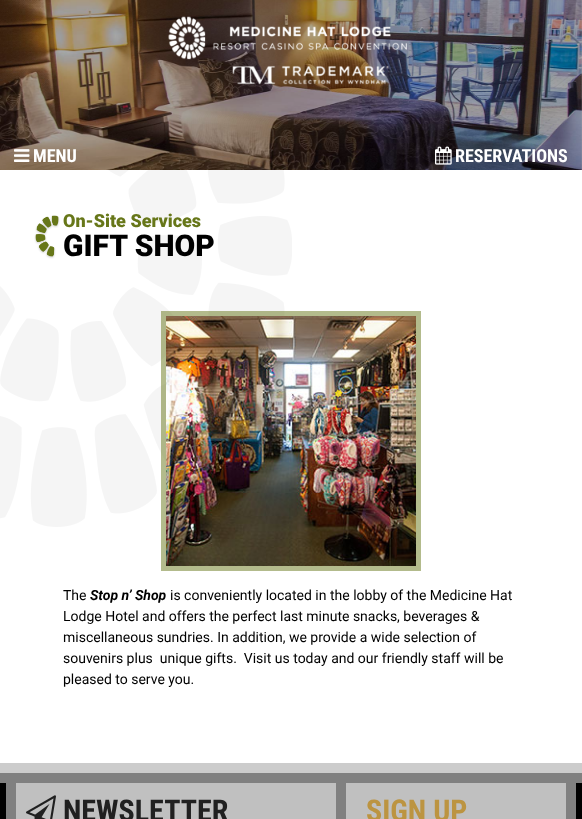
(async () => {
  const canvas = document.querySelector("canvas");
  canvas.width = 582;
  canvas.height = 819;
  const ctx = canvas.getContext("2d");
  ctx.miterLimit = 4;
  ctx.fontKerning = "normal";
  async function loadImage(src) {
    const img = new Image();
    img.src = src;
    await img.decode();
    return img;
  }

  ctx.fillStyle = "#ffffff";
  ctx.fillRect(0, 0, 582, 819);
  ctx.drawImage(await loadImage("img/1.png"), 0, 0, 582, 170);
  ctx.drawImage(await loadImage("img/2.png"), 0, 0, 582, 170);
  ctx.drawImage(await loadImage("img/3.png"), 168, 16, 239, 69);
  ctx.drawImage(await loadImage("img/4.png"), 14, 149, 16, 13);
  ctx.drawImage(await loadImage("img/5.png"), 435, 146, 17, 19);
  ctx.drawImage(await loadImage("img/6.png"), 0, 170, 292, 357);
  ctx.fillStyle = "#cccccc";
  ctx.fillRect(0, 763, 582, 10);
  ctx.drawImage(await loadImage("img/7.png"), 34, 215, 26, 44);
  ctx.strokeStyle = "rgba(103, 119, 25, 0.5)";
  ctx.lineWidth = 5;
  ctx.strokeRect(163.5, 313.5, 255, 255);
  ctx.drawImage(await loadImage("img/8.png"), 166, 316, 250, 250);
  for (const [x, y, w, h, color] of [
    [0, 783, 582, 36, "#000000"],
    [0, 773, 582, 10, "#808080"],
    [6, 783, 570, 36, "#808080"],
    [16, 783, 320, 36, "#c0c0c0"],
  ]) {
    ctx.fillStyle = color;
    ctx.fillRect(x, y, w, h);
  }
  ctx.drawImage(await loadImage("img/9.png"), 26, 795, 30, 24);
  ctx.fillRect(346, 783, 220, 36);
  ctx.font = "bold 18px Roboto Condensed";
  ctx.fillStyle = "#ffffff";
  ctx.fillText("MENU", 33, 162);
  ctx.fillText("RESERVATIONS", 455, 162);
  ctx.font = "900 18px Roboto";
  ctx.fillStyle = "#677719";
  ctx.fillText("On-Site Services", 63, 227);
  ctx.font = "900 30px Roboto";
  ctx.fillStyle = "#000000";
  ctx.fillText("GIFT SHOP", 63, 256);
  ctx.font = "14px Roboto";
  ctx.fillText("The", 63, 600);
  ctx.font = "italic bold 14px Roboto";
  ctx.fillText("Stop n’ Shop", 90, 600);
  ctx.font = "14px Roboto";
  for (const [text, x, y] of [
    ["is conveniently located in the lobby of the Medicine Hat", 170, 600],
    ["Lodge Hotel and offers the perfect last minute snacks, beverages &", 63, 621],
    ["miscellaneous sundries. In addition, we provide a wide selection of", 63, 642],
    ["souvenirs plus  unique gifts.  Visit us today and our friendly staff will be", 63, 663],
    ["pleased to serve you.", 63, 684],
  ]) {
    ctx.fillText(text, x, y);
  }
  ctx.font = "bold 30px Roboto Condensed";
  ctx.fillStyle = "#202020";
  ctx.fillText("NEWSLETTER", 63, 821);
  ctx.fillStyle = "#bc9441";
  ctx.fillText("SIGN UP", 366, 821);
})();
